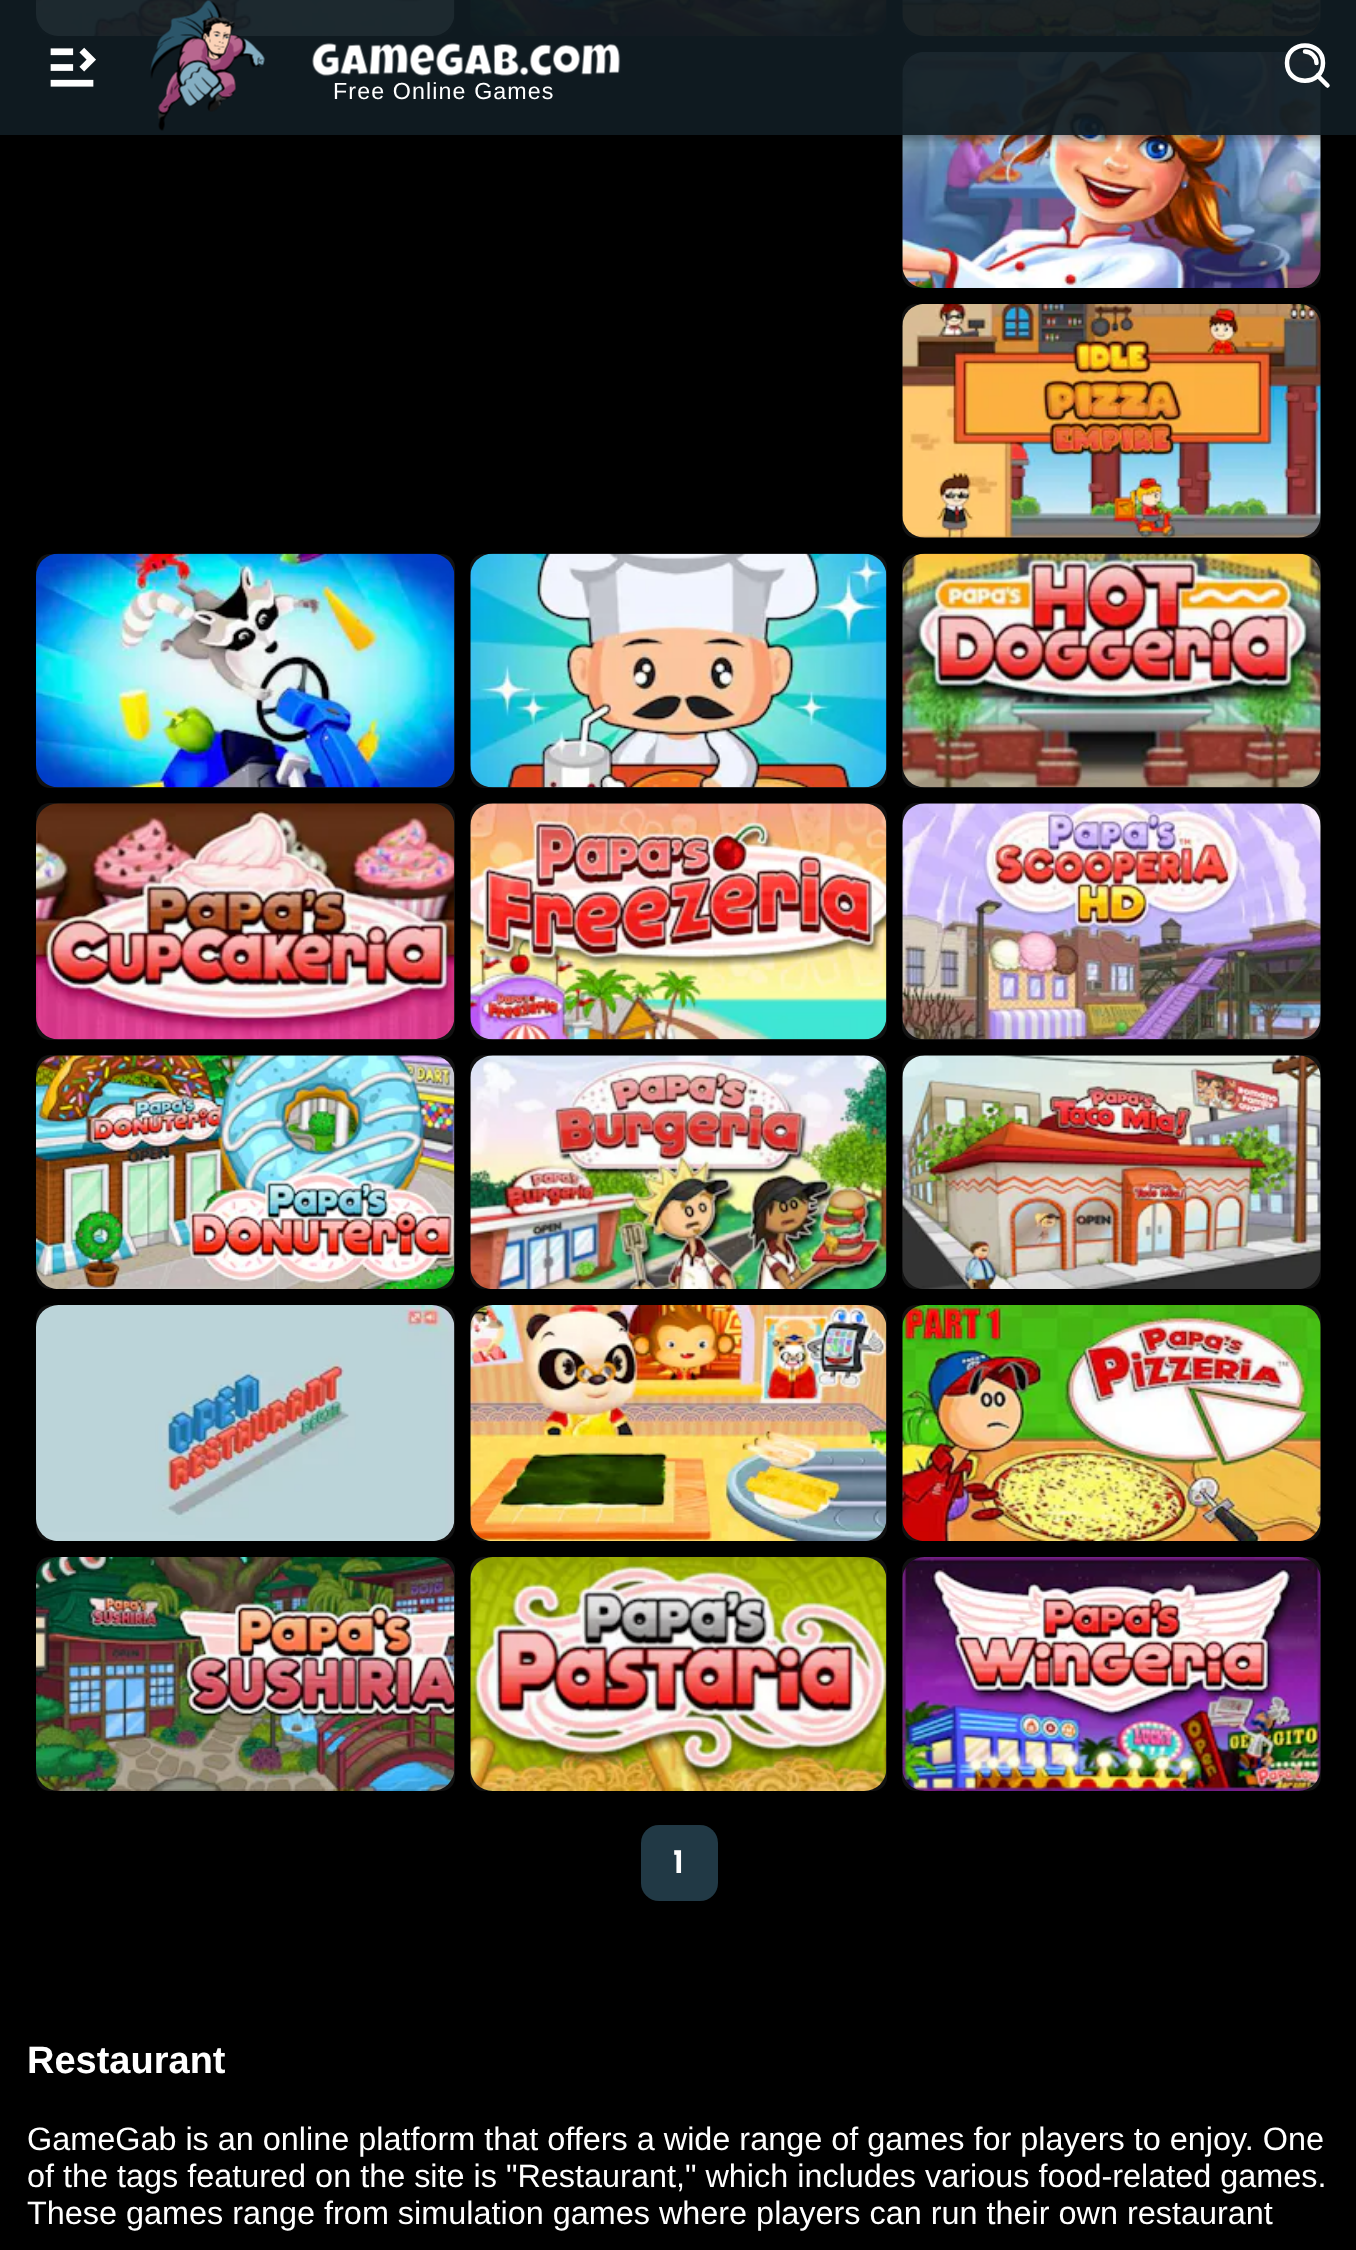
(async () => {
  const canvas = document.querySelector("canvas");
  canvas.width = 1356;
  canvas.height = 2250;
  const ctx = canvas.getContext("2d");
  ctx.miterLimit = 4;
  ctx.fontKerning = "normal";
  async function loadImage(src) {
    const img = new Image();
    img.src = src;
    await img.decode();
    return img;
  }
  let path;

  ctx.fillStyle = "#000000";
  ctx.fillRect(0, 0, 1356, 2250);
  ctx.fillStyle = "#121212";
  ctx.beginPath();
  ctx.roundRect(36, -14, 419, 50, 14);
  ctx.fill();
  ctx.drawImage(await loadImage("img/4.png"), 36, 0, 419, 36);
  ctx.beginPath();
  ctx.roundRect(470, -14, 417, 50, 14);
  ctx.fill();
  ctx.drawImage(await loadImage("img/5.png"), 470, 0, 417, 36);
  ctx.beginPath();
  ctx.roundRect(902, -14, 419, 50, 14);
  ctx.fill();
  ctx.drawImage(await loadImage("img/6.png"), 902, 0, 419, 36);
  ctx.beginPath();
  ctx.roundRect(902, 52, 419, 236, 14);
  ctx.fill();
  ctx.drawImage(await loadImage("img/7.png"), 902, 52, 419, 236);
  ctx.save();
  ctx.beginPath();
  ctx.rect(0, 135, 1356, 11);
  ctx.clip();
  ctx.fillStyle = "rgba(0, 0, 0, 0.12)";
  ctx.filter = "blur(9px)";
  ctx.beginPath();
  ctx.rect(0, 2, 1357, 135);
  ctx.fill();
  ctx.filter = "none";
  ctx.restore();
  ctx.save();
  ctx.beginPath();
  ctx.rect(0, 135, 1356, 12);
  ctx.clip();
  ctx.fillStyle = "rgba(0, 0, 0, 0.14)";
  ctx.filter = "blur(4.5px)";
  ctx.beginPath();
  ctx.rect(0, 7, 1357, 135);
  ctx.fill();
  ctx.filter = "none";
  ctx.restore();
  ctx.save();
  ctx.beginPath();
  ctx.rect(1, 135, 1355, 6);
  ctx.clip();
  ctx.fillStyle = "rgba(0, 0, 0, 0.2)";
  ctx.filter = "blur(3.5px)";
  ctx.beginPath();
  ctx.rect(5, 11, 1347, 126);
  ctx.fill();
  ctx.filter = "none";
  ctx.restore();
  ctx.fillStyle = "rgba(16, 28, 34, 0.94)";
  ctx.fillRect(0, 0, 1356, 135);
  path = new Path2D("M1327.5 85.5L1317.5 75.5M1305 51.5C1311 51.5 1316.5 57 1316.5 63M1323 63C1323 86.5 1287 86.5 1287 63C1287 39.5 1323 39.5 1323 63Z");
  ctx.strokeStyle = "#ffffff";
  ctx.lineWidth = 4.5;
  ctx.lineCap = "round";
  ctx.lineJoin = "round";
  ctx.stroke(path);
  ctx.drawImage(await loadImage("img/1.png"), 50, 47, 46, 40);
  ctx.drawImage(await loadImage("img/2.png"), 150, 0, 115, 131);
  ctx.drawImage(await loadImage("img/3.png"), 312, 42, 309, 35);
  ctx.fillStyle = "#121212";
  ctx.beginPath();
  ctx.roundRect(902, 304, 419, 234, 14);
  ctx.fill();
  ctx.drawImage(await loadImage("img/8.png"), 902, 304, 419, 234);
  ctx.beginPath();
  ctx.roundRect(36, 554, 419, 234, 14);
  ctx.fill();
  ctx.drawImage(await loadImage("img/9.png"), 36, 553, 419, 235);
  ctx.beginPath();
  ctx.roundRect(470, 554, 417, 234, 14);
  ctx.fill();
  ctx.drawImage(await loadImage("img/10.png"), 470, 553, 417, 235);
  ctx.beginPath();
  ctx.roundRect(902, 554, 419, 234, 14);
  ctx.fill();
  ctx.drawImage(await loadImage("img/11.png"), 902, 553, 419, 235);
  ctx.beginPath();
  ctx.roundRect(36, 803, 419, 237, 14);
  ctx.fill();
  ctx.drawImage(await loadImage("img/12.png"), 36, 803, 419, 237);
  ctx.beginPath();
  ctx.roundRect(470, 803, 417, 237, 14);
  ctx.fill();
  ctx.drawImage(await loadImage("img/13.png"), 470, 803, 417, 237);
  ctx.beginPath();
  ctx.roundRect(902, 803, 419, 237, 14);
  ctx.fill();
  ctx.drawImage(await loadImage("img/14.png"), 902, 803, 419, 237);
  ctx.beginPath();
  ctx.roundRect(36, 1055, 419, 234, 14);
  ctx.fill();
  ctx.drawImage(await loadImage("img/15.png"), 36, 1055, 419, 234);
  ctx.beginPath();
  ctx.roundRect(470, 1055, 417, 234, 14);
  ctx.fill();
  ctx.drawImage(await loadImage("img/16.png"), 470, 1055, 417, 234);
  ctx.beginPath();
  ctx.roundRect(902, 1055, 419, 234, 14);
  ctx.fill();
  ctx.drawImage(await loadImage("img/17.png"), 902, 1055, 419, 234);
  ctx.beginPath();
  ctx.roundRect(36, 1305, 419, 236, 14);
  ctx.fill();
  ctx.drawImage(await loadImage("img/18.png"), 36, 1305, 419, 236);
  ctx.beginPath();
  ctx.roundRect(470, 1305, 417, 236, 14);
  ctx.fill();
  ctx.drawImage(await loadImage("img/19.png"), 470, 1305, 417, 236);
  ctx.beginPath();
  ctx.roundRect(902, 1305, 419, 236, 14);
  ctx.fill();
  ctx.drawImage(await loadImage("img/20.png"), 902, 1305, 419, 236);
  ctx.beginPath();
  ctx.roundRect(36, 1557, 419, 234, 14);
  ctx.fill();
  ctx.drawImage(await loadImage("img/21.png"), 36, 1557, 419, 234);
  ctx.beginPath();
  ctx.roundRect(470, 1557, 417, 234, 14);
  ctx.fill();
  ctx.drawImage(await loadImage("img/22.png"), 470, 1557, 417, 234);
  ctx.beginPath();
  ctx.roundRect(902, 1557, 419, 234, 14);
  ctx.fill();
  ctx.drawImage(await loadImage("img/23.png"), 902, 1557, 419, 234);
  ctx.fillStyle = "#213945";
  ctx.beginPath();
  ctx.roundRect(641, 1825, 77, 76, 18);
  ctx.fill();
  ctx.letterSpacing = "1.1px";
  ctx.font = "23.25px Liberation Sans";
  ctx.fillStyle = "#ffffff";
  ctx.fillText("Free Online Games", 333, 99);
  ctx.letterSpacing = "0px";
  ctx.font = "32.4px Righteous";
  ctx.fillText("1", 673, 1873);
  ctx.font = "bold 38px Liberation Sans";
  ctx.fillText("Restaurant", 27, 2073);
  ctx.font = "32.4px Liberation Sans";
  for (const [text, x, y] of [
    ["GameGab is an online platform that offers a wide range of games for players to enjoy. One", 27, 2150],
    ["of the tags featured on the site is \"Restaurant,\" which includes various food-related games.", 27, 2187],
    ["These games range from simulation games where players can run their own restaurant", 27, 2224],
  ]) {
    ctx.fillText(text, x, y);
  }
})();
